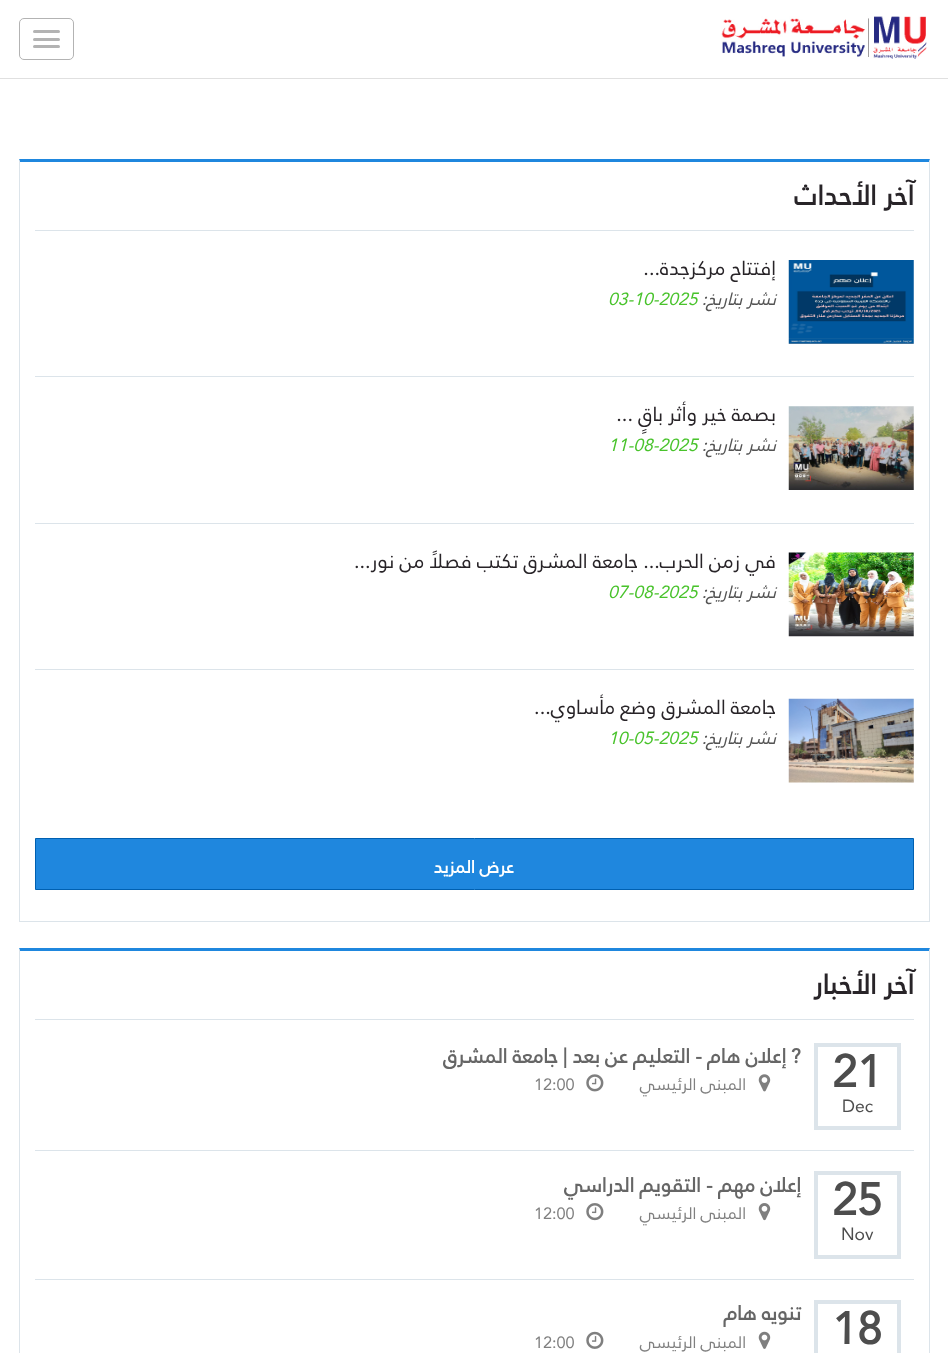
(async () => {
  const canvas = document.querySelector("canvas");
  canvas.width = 948;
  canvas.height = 1353;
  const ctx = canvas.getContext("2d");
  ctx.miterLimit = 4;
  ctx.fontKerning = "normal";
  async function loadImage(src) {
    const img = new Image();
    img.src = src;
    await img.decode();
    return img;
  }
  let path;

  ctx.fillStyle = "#ffffff";
  ctx.fillRect(0, 0, 948, 1353);
  ctx.fillStyle = "rgba(0, 0, 0, 0.12)";
  ctx.filter = "blur(0.5px)";
  ctx.beginPath();
  ctx.rect(0, 1, 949, 78);
  ctx.fill();
  ctx.filter = "none";
  ctx.fillStyle = "#ffffff";
  ctx.fillRect(0, 0, 948, 78);
  ctx.drawImage(await loadImage("img/1.png"), 721, 16, 206, 43);
  ctx.beginPath();
  ctx.roundRect(19.5, 18.5, 54, 41, 4.5);
  ctx.strokeStyle = "#b3b3b3";
  ctx.stroke();
  ctx.fillStyle = "#b3b3b3";
  ctx.beginPath();
  ctx.roundRect(33, 30, 27, 3, 1.5);
  ctx.fill();
  ctx.beginPath();
  ctx.roundRect(33, 38, 27, 3, 1.5);
  ctx.fill();
  ctx.beginPath();
  ctx.roundRect(33, 45, 27, 3, 1.5);
  ctx.fill();
  ctx.fillStyle = "#1f87de";
  path = new Path2D("M19 159H930L929 162H20Z");
  ctx.fill(path);
  ctx.fillStyle = "#dce4ea";
  path = new Path2D("M930 159V922L929 921V162Z");
  ctx.fill(path);
  ctx.fillRect(19, 921, 911, 1);
  path = new Path2D("M19 922V159L20 162V921Z");
  ctx.fill(path);
  ctx.fillRect(35, 230, 879, 1);
  ctx.fillRect(35, 376, 879, 1);
  ctx.drawImage(await loadImage("img/2.png"), 788, 260, 126, 84);
  ctx.fillRect(35, 523, 879, 1);
  ctx.drawImage(await loadImage("img/3.png"), 788, 406, 126, 84);
  ctx.fillRect(35, 669, 879, 1);
  ctx.drawImage(await loadImage("img/4.png"), 788, 552, 126, 85);
  ctx.drawImage(await loadImage("img/5.png"), 788, 698, 126, 85);
  ctx.fillStyle = "#1f87de";
  ctx.beginPath();
  ctx.rect(35.5, 838.5, 878, 51);
  ctx.fill();
  ctx.strokeStyle = "#0060b1";
  ctx.stroke();
  path = new Path2D("M19 948H930L929 951H20Z");
  ctx.fill(path);
  ctx.fillStyle = "#dce4ea";
  path = new Path2D("M930 948V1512L929 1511V951Z");
  ctx.fill(path);
  path = new Path2D("M19 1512V948L20 951V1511Z");
  ctx.fill(path);
  ctx.fillRect(35, 1019, 879, 1);
  ctx.fillRect(35, 1150, 879, 1);
  ctx.strokeStyle = "#dce4ea";
  ctx.lineWidth = 4;
  ctx.strokeRect(816, 1045, 83, 83);
  ctx.drawImage(await loadImage("img/6.png"), 758, 1074, 13, 18);
  ctx.drawImage(await loadImage("img/7.png"), 586, 1074, 18, 18);
  ctx.fillRect(35, 1279, 879, 1);
  ctx.strokeRect(816, 1173, 83, 84);
  ctx.drawImage(await loadImage("img/8.png"), 758, 1203, 13, 18);
  ctx.drawImage(await loadImage("img/9.png"), 586, 1203, 18, 18);
  ctx.strokeRect(816, 1302, 83, 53);
  ctx.drawImage(await loadImage("img/10.png"), 758, 1331, 13, 18);
  ctx.drawImage(await loadImage("img/11.png"), 586, 1331, 18, 18);
  ctx.direction = "rtl";
  ctx.font = "bold 27.5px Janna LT";
  ctx.fillStyle = "#282428";
  ctx.fillText("آخر الأحداث", 914, 205);
  ctx.font = "20px Janna LT";
  ctx.fillText("إفتتاح مركزجدة...", 776, 275);
  ctx.font = "italic 17.5px Janna LT";
  ctx.fillStyle = "#545454";
  ctx.fillText("نشر بتاريخ:", 776, 305);
  ctx.direction = "ltr";
  ctx.fillStyle = "#49c32c";
  ctx.fillText("03-10-2025", 608, 305);
  ctx.direction = "rtl";
  ctx.font = "20px Janna LT";
  ctx.fillStyle = "#282428";
  ctx.fillText("بصمة خير وأثر باقٍ ...", 776, 421);
  ctx.font = "italic 17.5px Janna LT";
  ctx.fillStyle = "#545454";
  ctx.fillText("نشر بتاريخ:", 776, 451);
  ctx.direction = "ltr";
  ctx.fillStyle = "#49c32c";
  ctx.fillText("11-08-2025", 608, 451);
  ctx.direction = "rtl";
  ctx.font = "20px Janna LT";
  ctx.fillStyle = "#282428";
  ctx.fillText("في زمن الحرب... جامعة المشرق تكتب فصلاً من نور...", 776, 568);
  ctx.font = "italic 17.5px Janna LT";
  ctx.fillStyle = "#545454";
  ctx.fillText("نشر بتاريخ:", 776, 598);
  ctx.direction = "ltr";
  ctx.fillStyle = "#49c32c";
  ctx.fillText("07-08-2025", 608, 598);
  ctx.direction = "rtl";
  ctx.font = "20px Janna LT";
  ctx.fillStyle = "#282428";
  ctx.fillText("جامعة المشرق وضع مأساوي...", 776, 714);
  ctx.font = "italic 17.5px Janna LT";
  ctx.fillStyle = "#545454";
  ctx.fillText("نشر بتاريخ:", 776, 744);
  ctx.direction = "ltr";
  ctx.fillStyle = "#49c32c";
  ctx.fillText("10-05-2025", 608, 744);
  ctx.direction = "rtl";
  ctx.font = "bold 17.5px Janna LT";
  ctx.fillStyle = "#ffffff";
  ctx.fillText("عرض المزيد", 514, 873);
  ctx.font = "bold 27.5px Janna LT";
  ctx.fillStyle = "#282428";
  ctx.fillText("آخر الأخبار", 914, 994);
  ctx.direction = "ltr";
  ctx.font = "bold 45px Janna LT";
  ctx.fillStyle = "#4d4d4d";
  ctx.fillText("21", 832, 1087);
  ctx.font = "17.5px Janna LT";
  ctx.fillText("Dec", 842, 1112);
  ctx.direction = "rtl";
  ctx.font = "bold 20px Janna LT";
  ctx.fillStyle = "#666666";
  ctx.fillText("? إعلان هام - التعليم عن بعد | جامعة المشرق", 801, 1063);
  ctx.font = "16.25px Janna LT";
  ctx.fillStyle = "#808080";
  ctx.fillText("المبنى الرئيسي", 746, 1090);
  ctx.direction = "ltr";
  ctx.fillText("12:00", 534, 1090);
  ctx.font = "bold 45px Janna LT";
  ctx.fillStyle = "#4d4d4d";
  ctx.fillText("25", 832, 1215);
  ctx.font = "17.5px Janna LT";
  ctx.fillText("Nov", 841, 1240);
  ctx.direction = "rtl";
  ctx.font = "bold 20px Janna LT";
  ctx.fillStyle = "#666666";
  ctx.fillText("إعلان مهم - التقويم الدراسي", 801, 1192);
  ctx.font = "16.25px Janna LT";
  ctx.fillStyle = "#808080";
  ctx.fillText("المبنى الرئيسي", 746, 1219);
  ctx.direction = "ltr";
  ctx.fillText("12:00", 534, 1219);
  ctx.font = "bold 45px Janna LT";
  ctx.fillStyle = "#4d4d4d";
  ctx.fillText("18", 832, 1344);
  ctx.direction = "rtl";
  ctx.font = "bold 20px Janna LT";
  ctx.fillStyle = "#666666";
  ctx.fillText("تنويه هام", 801, 1320);
  ctx.font = "16.25px Janna LT";
  ctx.fillStyle = "#808080";
  ctx.fillText("المبنى الرئيسي", 746, 1348);
  ctx.direction = "ltr";
  ctx.fillText("12:00", 534, 1348);
})();
